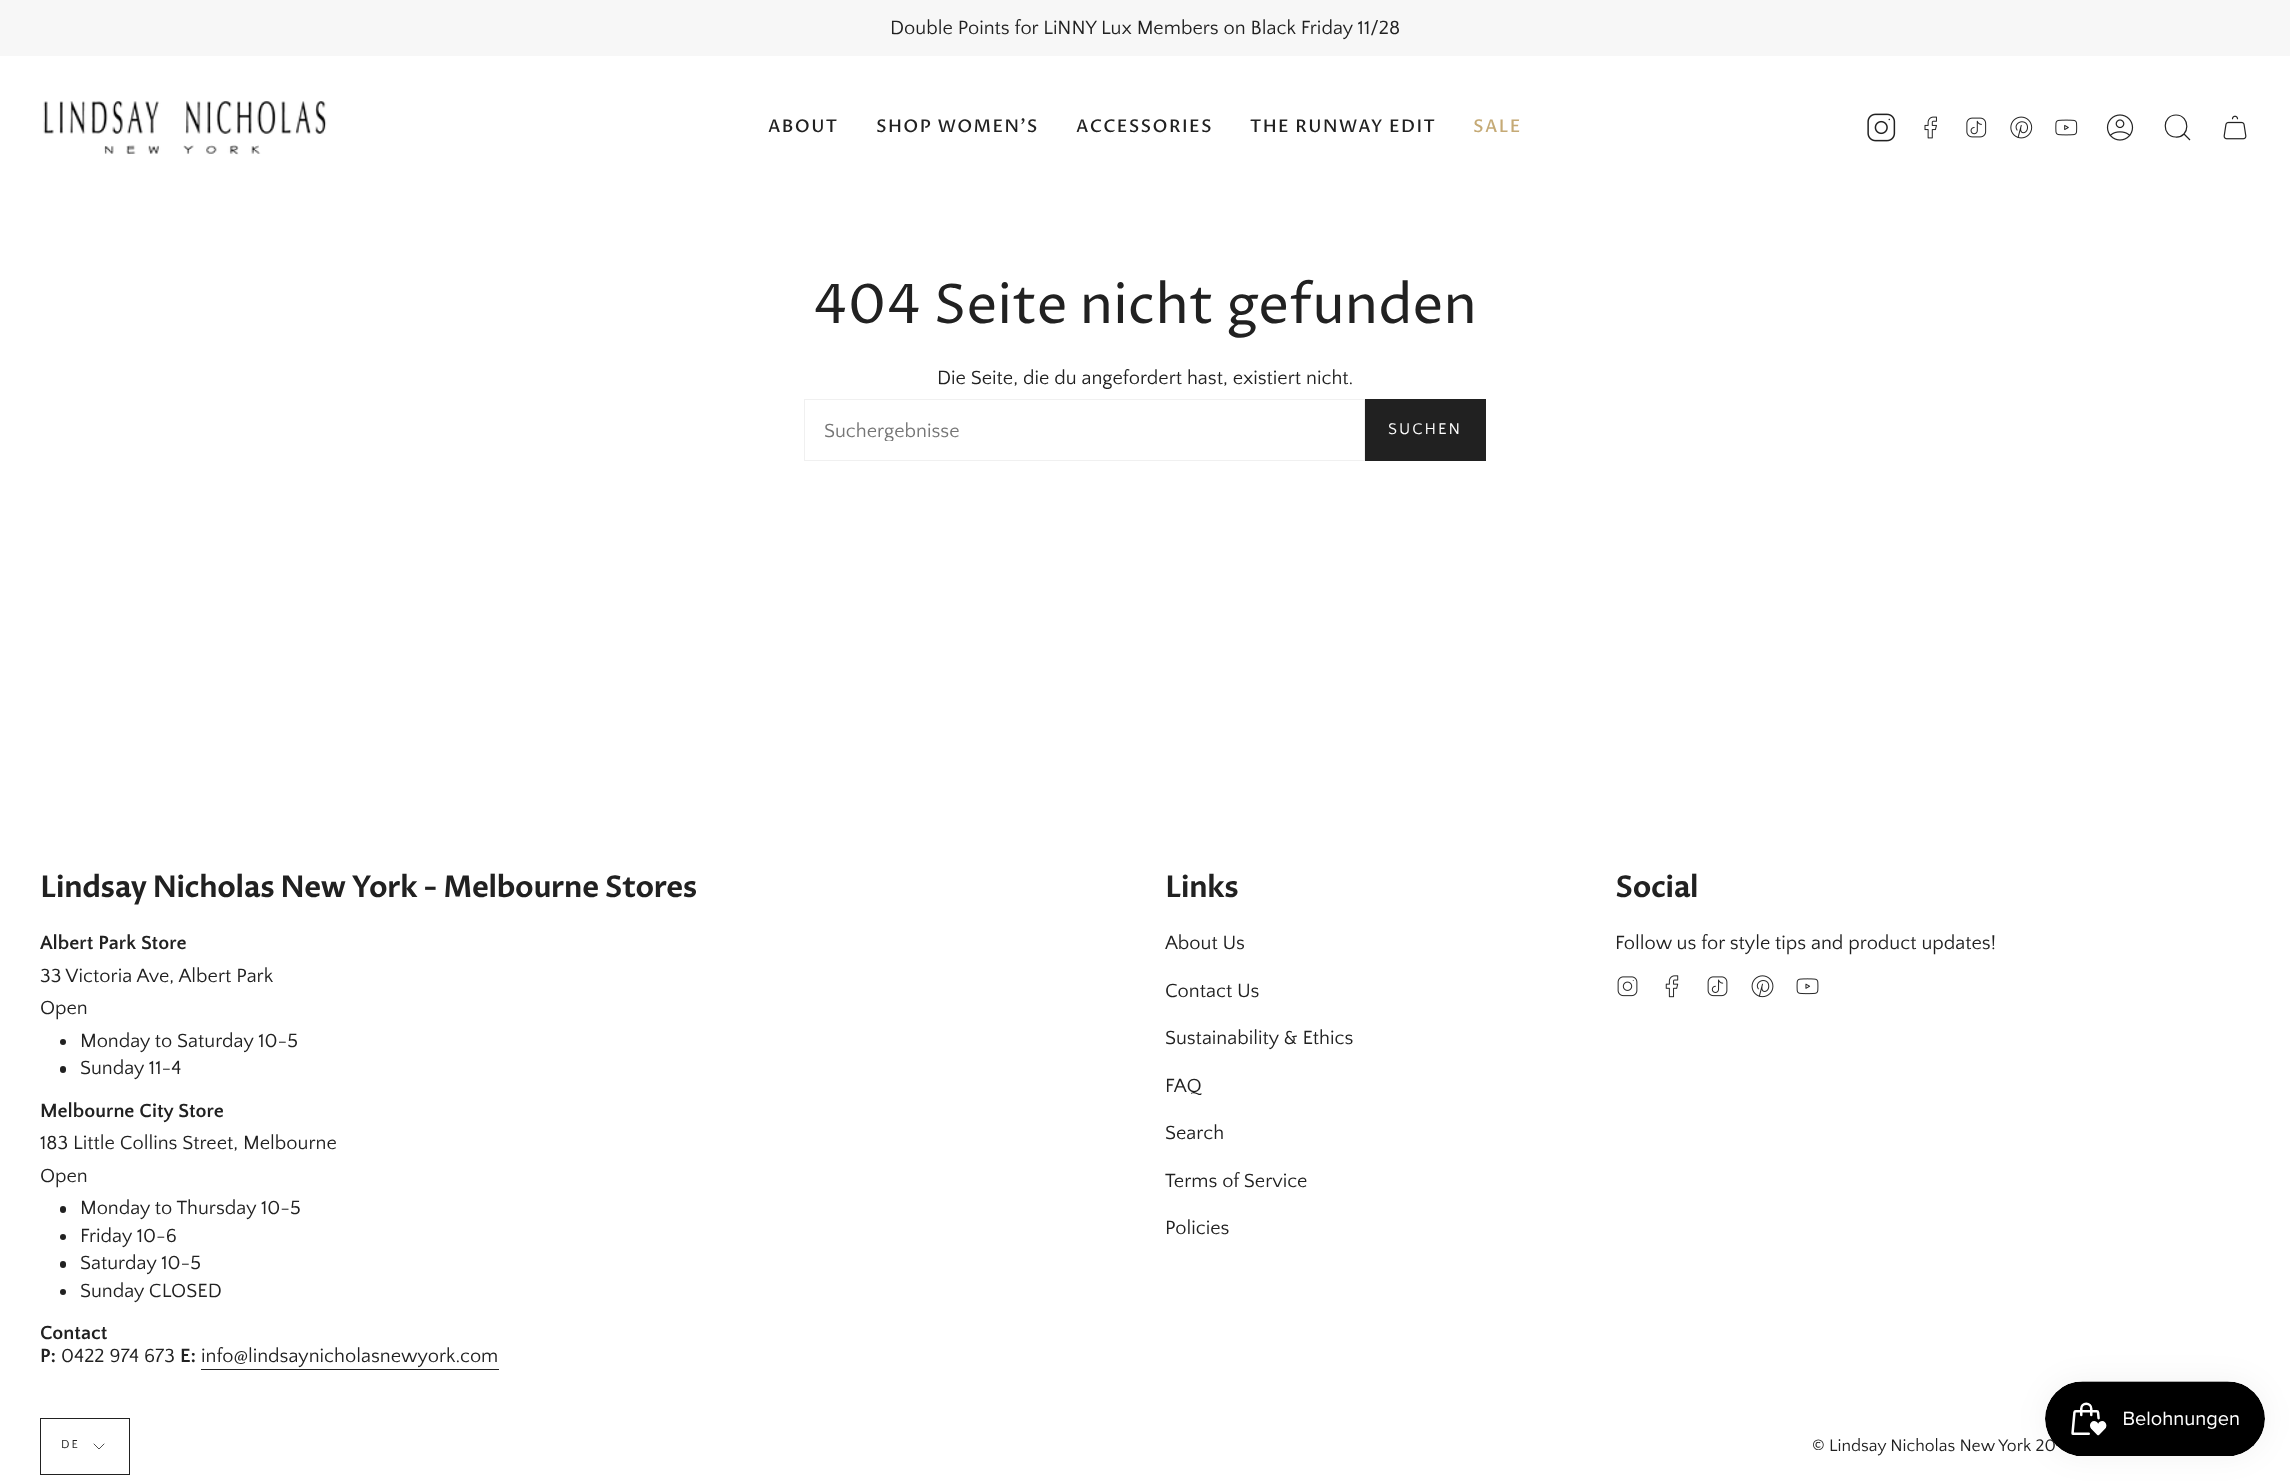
(async () => {
  const canvas = document.querySelector("canvas");
  canvas.width = 2290;
  canvas.height = 1481;
  const ctx = canvas.getContext("2d");
  ctx.miterLimit = 4;
  ctx.fontKerning = "normal";
  async function loadImage(src) {
    const img = new Image();
    img.src = src;
    await img.decode();
    return img;
  }
  let path;

  ctx.fillStyle = "#ffffff";
  ctx.fillRect(0, 0, 2290, 1481);
  ctx.fillStyle = "#f7f7f7";
  ctx.fillRect(0, 0, 2290, 56);
  ctx.drawImage(await loadImage("img/1.png"), 43, 101, 284, 54);
  ctx.drawImage(await loadImage("img/2.png"), 1867, 113, 29, 29);
  ctx.drawImage(await loadImage("img/3.png"), 1924, 116, 13, 23);
  ctx.drawImage(await loadImage("img/4.png"), 1966, 117, 21, 21);
  ctx.drawImage(await loadImage("img/5.png"), 2010, 116, 23, 23);
  ctx.drawImage(await loadImage("img/6.png"), 2055, 119, 23, 17);
  ctx.drawImage(await loadImage("img/7.png"), 2106, 114, 28, 27);
  path = new Path2D("M2176 115C2190.5 115 2190.5 138 2175.5 137C2161.5 136.5 2162 115 2176 115ZM2184 134L2190 140");
  ctx.strokeStyle = "#212121";
  ctx.lineWidth = 1.2;
  ctx.stroke(path);
  ctx.drawImage(await loadImage("img/8.png"), 2223, 115, 24, 25);
  ctx.strokeStyle = "#f0f0f0";
  ctx.lineWidth = 1;
  ctx.strokeRect(804.5, 399.5, 560, 61);
  ctx.fillStyle = "#212121";
  ctx.fillRect(1365, 399, 121, 62);
  ctx.beginPath();
  ctx.arc(63, 1042, 3, 0, Math.PI * 2);
  ctx.fill();
  ctx.beginPath();
  ctx.roundRect(60, 1066, 6, 7, 3);
  ctx.fill();
  ctx.beginPath();
  ctx.roundRect(60, 1206, 6, 7, 3);
  ctx.fill();
  ctx.beginPath();
  ctx.arc(63, 1237, 3, 0, Math.PI * 2);
  ctx.fill();
  ctx.beginPath();
  ctx.roundRect(60, 1261, 6, 7, 3);
  ctx.fill();
  ctx.beginPath();
  ctx.arc(63, 1292, 3, 0, Math.PI * 2);
  ctx.fill();
  ctx.fillRect(201, 1369, 298, 1);
  ctx.drawImage(await loadImage("img/9.png"), 1617, 976, 21, 21);
  ctx.drawImage(await loadImage("img/10.png"), 1665, 975, 14, 23);
  ctx.drawImage(await loadImage("img/11.png"), 1707, 976, 21, 21);
  ctx.drawImage(await loadImage("img/12.png"), 1751, 975, 23, 23);
  ctx.drawImage(await loadImage("img/13.png"), 1796, 978, 23, 17);
  ctx.strokeStyle = "#212121";
  ctx.strokeRect(40.5, 1418.5, 89, 56);
  path = new Path2D("M94 1444L99 1449L104 1444");
  ctx.lineWidth = 0.8;
  ctx.lineCap = "round";
  ctx.lineJoin = "round";
  ctx.stroke(path);
  ctx.fillStyle = "rgba(0, 0, 0, 0.05)";
  ctx.filter = "blur(15.5px)";
  ctx.beginPath();
  ctx.roundRect(2045, 1381, 220, 75, 37.5);
  ctx.fill();
  ctx.filter = "none";
  ctx.font = "20px Quattrocento Sans";
  ctx.fillStyle = "#212121";
  ctx.fillText("Double Points for LiNNY Lux Members on Black Friday 11/28", 890, 34);
  ctx.letterSpacing = "1.4px";
  ctx.font = "500 17.5px Proza Libre";
  for (const [text, x, y] of [
    ["ABOUT", 768, 132],
    ["SHOP WOMEN'S", 876, 132],
    ["ACCESSORIES", 1076, 132],
    ["THE RUNWAY EDIT", 1250, 132],
  ]) {
    ctx.fillText(text, x, y);
  }
  ctx.fillStyle = "#c5aa76";
  ctx.fillText("SALE", 1473, 132);
  ctx.letterSpacing = "0px";
  ctx.font = "54.6px Proza Libre";
  ctx.fillStyle = "#212121";
  ctx.fillText("404 Seite nicht gefunden", 813, 323);
  ctx.font = "20px Quattrocento Sans";
  ctx.fillText("Die Seite, die du angefordert hast, existiert nicht.", 937, 384);
  ctx.save();
  ctx.beginPath();
  ctx.rect(824, 419, 521, 22);
  ctx.clip();
  ctx.fillStyle = "#757575";
  ctx.fillText("Suchergebnisse", 824, 437);
  ctx.restore();
  ctx.letterSpacing = "2px";
  ctx.font = "16.25px Quattrocento Sans";
  ctx.fillStyle = "#ffffff";
  ctx.fillText("SUCHEN", 1388, 434);
  ctx.letterSpacing = "0px";
  ctx.font = "bold 28.75px Proza Libre";
  ctx.fillStyle = "#212121";
  ctx.fillText("Lindsay Nicholas New York - Melbourne Stores", 40, 897);
  ctx.font = "bold 20px Quattrocento Sans";
  ctx.fillText("Albert Park Store", 40, 949);
  ctx.font = "20px Quattrocento Sans";
  for (const [text, x, y] of [
    ["33 Victoria Ave, Albert Park", 40, 982],
    ["Open", 40, 1014],
    ["Monday to Saturday 10-5", 80, 1047],
    ["Sunday 11-4", 80, 1074],
  ]) {
    ctx.fillText(text, x, y);
  }
  ctx.font = "bold 20px Quattrocento Sans";
  ctx.fillText("Melbourne City Store", 40, 1117);
  ctx.font = "20px Quattrocento Sans";
  for (const [text, x, y] of [
    ["183 Little Collins Street, Melbourne", 40, 1149],
    ["Open", 40, 1182],
    ["Monday to Thursday 10-5", 80, 1214],
    ["Friday 10-6", 80, 1242],
    ["Saturday 10-5", 80, 1269],
    ["Sunday CLOSED", 80, 1297],
  ]) {
    ctx.fillText(text, x, y);
  }
  ctx.font = "bold 20px Quattrocento Sans";
  ctx.fillText("Contact", 40, 1339);
  ctx.fillText("P:", 40, 1362);
  ctx.font = "20px Quattrocento Sans";
  ctx.fillText("0422 974 673", 61, 1362);
  ctx.font = "bold 20px Quattrocento Sans";
  ctx.fillText("E:", 180, 1362);
  ctx.font = "20px Quattrocento Sans";
  ctx.fillText("info@lindsaynicholasnewyork.com", 201, 1362);
  ctx.font = "bold 28.75px Proza Libre";
  ctx.fillText("Links", 1165, 897);
  ctx.font = "20px Quattrocento Sans";
  for (const [text, x, y] of [
    ["About Us", 1165, 949],
    ["Contact Us", 1165, 997],
    ["Sustainability & Ethics", 1165, 1044],
    ["FAQ", 1165, 1092],
    ["Search", 1165, 1139],
    ["Terms of Service", 1165, 1187],
    ["Policies", 1165, 1234],
  ]) {
    ctx.fillText(text, x, y);
  }
  ctx.font = "bold 28.75px Proza Libre";
  ctx.fillText("Social", 1615, 897);
  ctx.font = "20px Quattrocento Sans";
  ctx.fillText("Follow us for style tips and product updates!", 1615, 949);
  ctx.letterSpacing = "2px";
  ctx.font = "12px Quattrocento Sans";
  ctx.fillText("DE", 61, 1448);
  ctx.letterSpacing = "0px";
  ctx.font = "17.5px Quattrocento Sans";
  ctx.fillText("© Lindsay Nicholas New York 20", 1812, 1451);
  ctx.drawImage(await loadImage("img/14.png"), 2045, 1381, 220, 75);
})();
